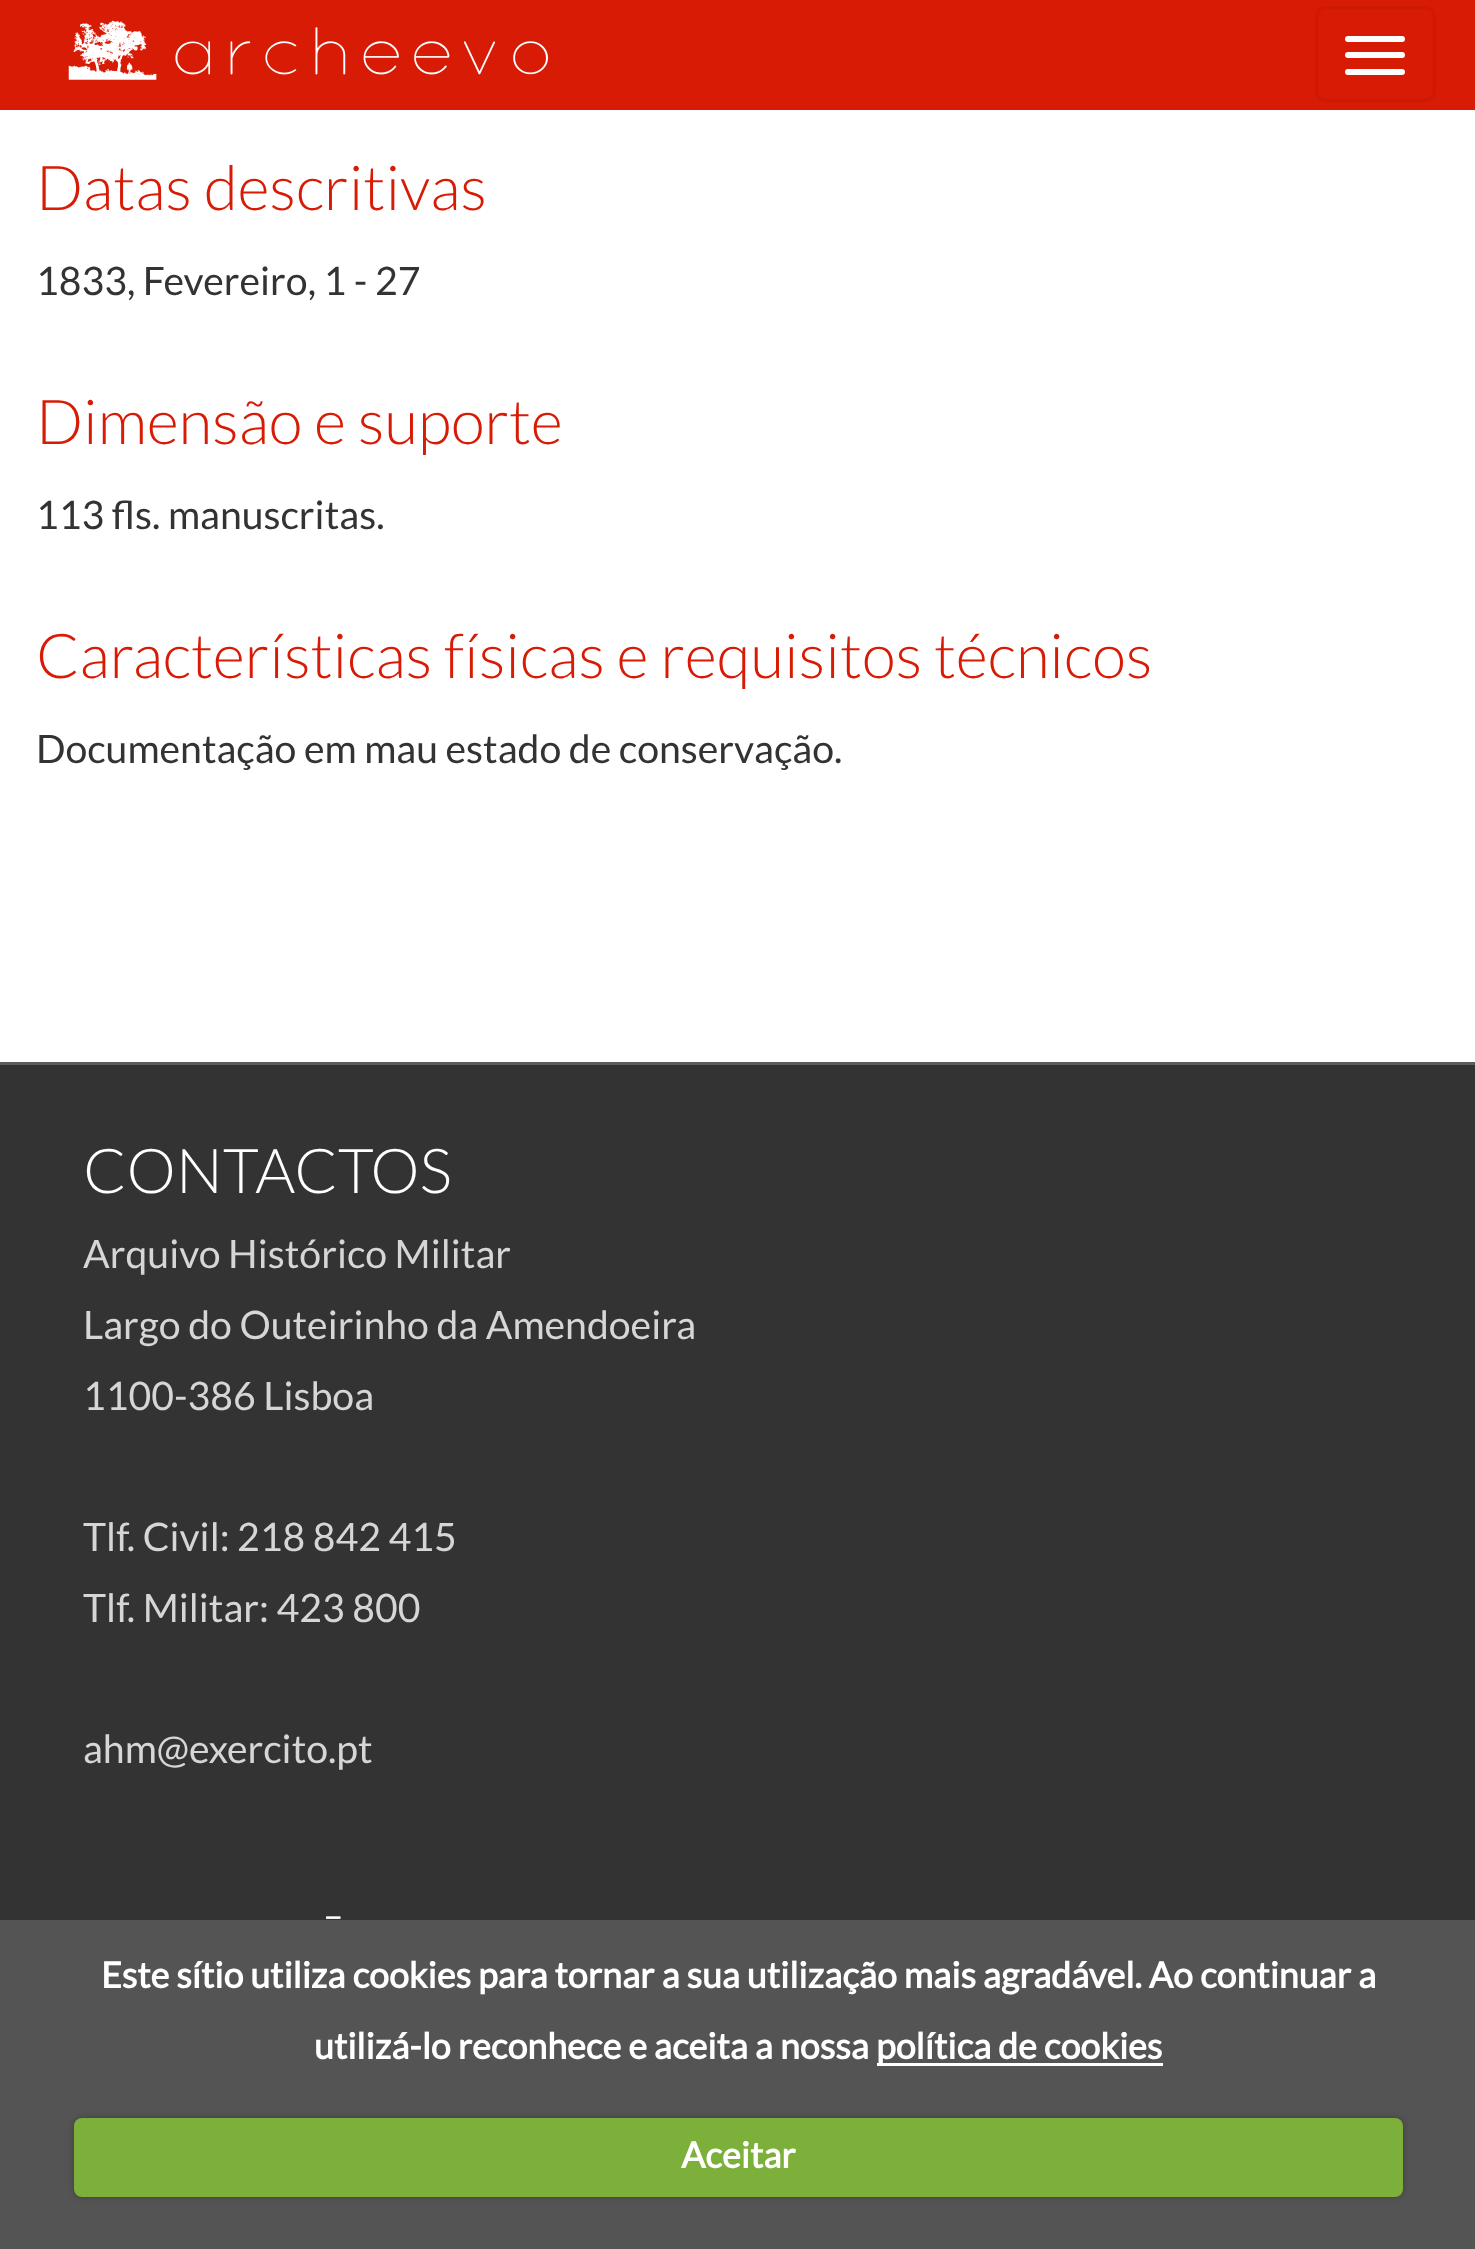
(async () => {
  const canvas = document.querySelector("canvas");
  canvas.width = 1475;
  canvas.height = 2249;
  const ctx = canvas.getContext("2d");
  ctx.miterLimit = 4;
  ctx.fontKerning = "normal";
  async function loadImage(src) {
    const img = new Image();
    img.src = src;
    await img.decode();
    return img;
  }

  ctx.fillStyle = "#ffffff";
  ctx.fillRect(0, 0, 1475, 2249);
  ctx.fillStyle = "#d81b05";
  ctx.fillRect(0, 0, 1475, 110);
  ctx.drawImage(await loadImage("img/1.png"), 68, 20, 480, 60);
  ctx.beginPath();
  ctx.roundRect(1316.5, 7.5, 118, 93, 9.5);
  ctx.strokeStyle = "#cd1a05";
  ctx.lineWidth = 3;
  ctx.stroke();
  ctx.fillStyle = "#ffffff";
  ctx.beginPath();
  ctx.roundRect(1345, 36, 60, 6, 3);
  ctx.fill();
  ctx.beginPath();
  ctx.roundRect(1345, 52, 60, 6, 3);
  ctx.fill();
  ctx.beginPath();
  ctx.roundRect(1345, 69, 60, 6, 3);
  ctx.fill();
  for (const [x, y, w, h, color] of [
    [0, 1065, 1475, 1184, "#333333"],
    [0, 1062, 1475, 3, "#5c5c5c"],
    [0, 1920, 1475, 329, "rgba(86, 86, 86, 0.95)"],
    [877, 2063, 286, 3, "#ffffff"],
  ]) {
    ctx.fillStyle = color;
    ctx.fillRect(x, y, w, h);
  }
  ctx.fillStyle = "rgba(0, 0, 0, 0.25)";
  ctx.filter = "blur(3px)";
  ctx.beginPath();
  ctx.roundRect(74, 2118, 1329, 79, 8);
  ctx.fill();
  ctx.filter = "none";
  ctx.fillStyle = "#7daf3b";
  ctx.beginPath();
  ctx.roundRect(74, 2118, 1329, 79, 8);
  ctx.fill();
  ctx.font = "300 61.9px Lato";
  ctx.fillStyle = "#d81b05";
  ctx.fillText("Datas descritivas", 36, 210);
  ctx.font = "39.2px Lato";
  ctx.fillStyle = "#333333";
  ctx.fillText("1833, Fevereiro, 1 - 27", 36, 295);
  ctx.font = "300 61.9px Lato";
  ctx.fillStyle = "#d81b05";
  ctx.fillText("Dimensão e suporte", 36, 444);
  ctx.font = "39.2px Lato";
  ctx.fillStyle = "#333333";
  ctx.fillText("113 fls. manuscritas.", 36, 529);
  ctx.font = "300 61.9px Lato";
  ctx.fillStyle = "#d81b05";
  ctx.fillText("Características físicas e requisitos técnicos", 36, 678);
  ctx.font = "39.2px Lato";
  ctx.fillStyle = "#333333";
  ctx.fillText("Documentação em mau estado de conservação.", 36, 763);
  ctx.font = "300 61.9px Lato";
  ctx.fillStyle = "#ffffff";
  ctx.fillText("CONTACTOS", 83, 1193);
  ctx.font = "39.2px Lato";
  ctx.fillStyle = "#d6d6d6";
  for (const [text, x, y] of [
    ["Arquivo Histórico Militar", 83, 1268],
    ["Largo do Outeirinho da Amendoeira", 83, 1339],
    ["1100-386 Lisboa", 83, 1410],
    ["Tlf. Civil: 218 842 415", 83, 1551],
    ["Tlf. Militar: 423 800", 83, 1622],
    ["ahm@exercito.pt", 83, 1763],
  ]) {
    ctx.fillText(text, x, y);
  }
  ctx.font = "300 61.9px Lato";
  ctx.fillStyle = "#ffffff";
  ctx.fillText("-", 323, 1936);
  ctx.font = "bold 35.75px Lato";
  for (const [text, x, y] of [
    ["Este sítio utiliza cookies para tornar a sua utilização mais agradável. Ao continuar a", 101, 1988],
    ["utilizá-lo reconhece e aceita a nossa", 314, 2059],
    ["política de cookies", 876, 2059],
    ["Aceitar", 681, 2168],
  ]) {
    ctx.fillText(text, x, y);
  }
})();
